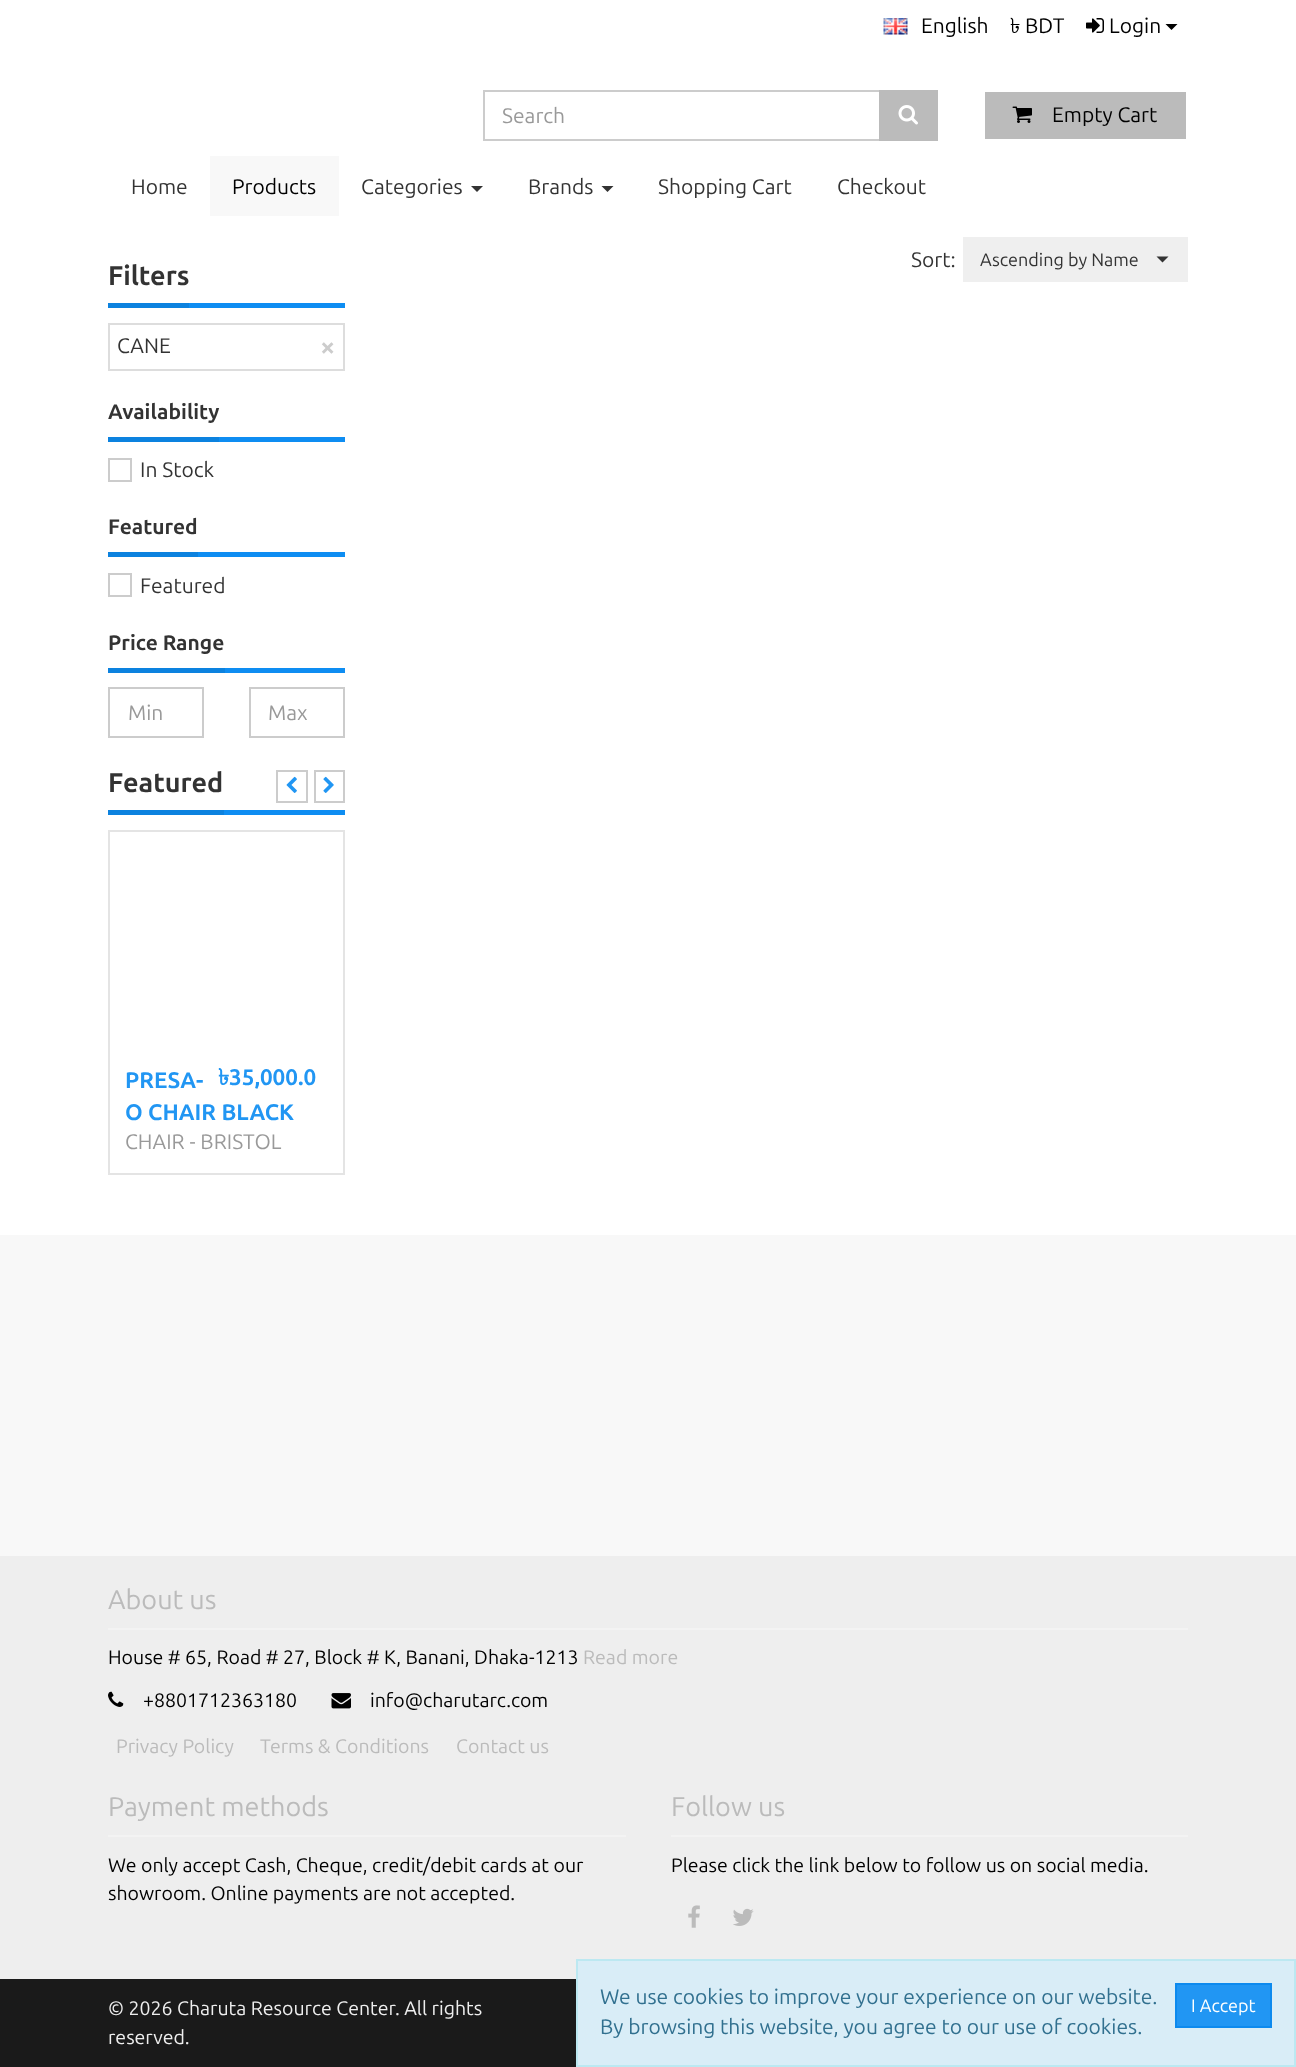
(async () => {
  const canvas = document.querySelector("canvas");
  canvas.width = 1296;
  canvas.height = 2067;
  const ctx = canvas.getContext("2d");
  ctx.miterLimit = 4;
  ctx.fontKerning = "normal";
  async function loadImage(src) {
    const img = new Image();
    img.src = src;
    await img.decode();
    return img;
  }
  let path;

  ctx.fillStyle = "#f8f8f8";
  ctx.fillRect(0, 0, 1296, 2067);
  ctx.fillStyle = "#ffffff";
  ctx.fillRect(0, 0, 1296, 156);
  ctx.drawImage(await loadImage("img/1.png"), 883, 18, 25, 17);
  ctx.drawImage(await loadImage("img/2.png"), 1086, 18, 18, 15);
  ctx.fillStyle = "#000000";
  path = new Path2D("M1165.5 24H1177.5L1171.5 30Z");
  ctx.fill(path);
  ctx.strokeStyle = "#cccccc";
  ctx.lineWidth = 2;
  ctx.strokeRect(484, 91, 397, 49);
  ctx.fillStyle = "#bbbbbb";
  ctx.fillRect(879, 90, 59, 51);
  ctx.drawImage(await loadImage("img/3.png"), 898, 105, 20, 20);
  ctx.fillRect(985, 92, 201, 47);
  ctx.drawImage(await loadImage("img/4.png"), 1012, 106, 20, 17);
  ctx.fillStyle = "#ffffff";
  ctx.fillRect(0, 156, 1296, 1079);
  ctx.fillStyle = "#f8f8f8";
  ctx.fillRect(210, 156, 129, 60);
  ctx.fillStyle = "#333333";
  path = new Path2D("M471 186H483L477 192Z");
  ctx.fill(path);
  path = new Path2D("M601.5 186H613.5L607.5 192Z");
  ctx.fill(path);
  ctx.fillStyle = "#efefef";
  ctx.fillRect(963, 237, 225, 45);
  ctx.fillStyle = "#333333";
  path = new Path2D("M1156.5 256.5H1168.5L1162.5 262.5Z");
  ctx.fill(path);
  ctx.fillStyle = "#0e8df2";
  ctx.fillRect(189, 303, 156, 5);
  ctx.fillStyle = "#0c82df";
  ctx.fillRect(108, 303, 81, 5);
  ctx.strokeStyle = "#dddddd";
  ctx.strokeRect(109, 324, 235, 46);
  ctx.fillStyle = "#0e8df2";
  ctx.fillRect(219, 437, 126, 5);
  ctx.fillStyle = "#0c82df";
  ctx.fillRect(108, 437, 111, 5);
  ctx.strokeStyle = "#cccccc";
  ctx.strokeRect(109, 459, 22, 22);
  ctx.fillStyle = "#0e8df2";
  ctx.fillRect(198, 552, 147, 5);
  ctx.fillStyle = "#0c82df";
  ctx.fillRect(108, 552, 90, 5);
  ctx.strokeRect(109, 574, 22, 22);
  ctx.fillStyle = "#0e8df2";
  ctx.fillRect(225, 668, 120, 5);
  ctx.fillStyle = "#0c82df";
  ctx.fillRect(108, 668, 117, 5);
  ctx.strokeRect(109, 688, 94, 49);
  ctx.strokeRect(250, 688, 94, 49);
  ctx.fillStyle = "#0e8df2";
  ctx.fillRect(224, 810, 121, 5);
  ctx.fillStyle = "#0c82df";
  ctx.fillRect(108, 810, 116, 5);
  ctx.strokeRect(277, 771, 30, 31);
  ctx.drawImage(await loadImage("img/5.png"), 286, 776, 11, 17);
  ctx.strokeRect(315, 771, 29, 31);
  ctx.drawImage(await loadImage("img/6.png"), 323, 776, 11, 17);
  ctx.strokeStyle = "#e4e4e4";
  ctx.strokeRect(109, 831, 235, 343);
  ctx.fillStyle = "#eeeeee";
  ctx.fillRect(0, 1556, 1296, 423);
  ctx.fillStyle = "#f3f3f3";
  ctx.fillRect(108, 1628, 1080, 2);
  ctx.drawImage(await loadImage("img/7.png"), 108, 1691, 16, 16);
  ctx.drawImage(await loadImage("img/8.png"), 331, 1693, 20, 16);
  ctx.fillRect(108, 1835, 518, 2);
  ctx.fillRect(671, 1835, 517, 2);
  ctx.drawImage(await loadImage("img/9.png"), 688, 1905, 12, 23);
  ctx.drawImage(await loadImage("img/10.png"), 733, 1908, 21, 18);
  ctx.fillStyle = "#1a1a1a";
  ctx.fillRect(0, 1979, 576, 88);
  ctx.fillStyle = "#d9edf7";
  ctx.beginPath();
  ctx.rect(577, 1960, 718, 106);
  ctx.fill();
  ctx.strokeStyle = "#bce8f1";
  ctx.stroke();
  ctx.fillStyle = "#2196f3";
  ctx.beginPath();
  ctx.rect(1176, 1984, 95, 43);
  ctx.fill();
  ctx.strokeStyle = "#0d8aee";
  ctx.stroke();
  ctx.font = "21px Ubuntu";
  ctx.fillStyle = "#000000";
  ctx.fillText("English", 921, 33);
  ctx.font = "21px Lohit Bengali";
  ctx.fillText("৳", 1010, 33);
  ctx.font = "21px Ubuntu";
  ctx.fillText("BDT", 1025, 33);
  ctx.fillText("Login", 1109, 33);
  ctx.fillStyle = "#999999";
  ctx.fillText("Search", 502, 123);
  ctx.fillStyle = "#000000";
  ctx.fillText("Empty Cart", 1052, 122);
  ctx.fillStyle = "#333333";
  ctx.fillText("Home", 131, 194);
  ctx.fillStyle = "#000000";
  ctx.fillText("Products", 232, 194);
  ctx.fillStyle = "#333333";
  for (const [text, x, y] of [
    ["Categories", 361, 194],
    ["Brands", 528, 194],
    ["Shopping Cart", 658, 194],
    ["Checkout", 837, 194],
    ["Sort:", 911, 267],
  ]) {
    ctx.fillText(text, x, y);
  }
  ctx.font = "18px Ubuntu";
  ctx.fillText("Ascending by Name", 980, 266);
  ctx.font = "bold 27px Ubuntu";
  ctx.fillText("Filters", 108, 285);
  ctx.font = "21px Ubuntu";
  ctx.fillText("CANE", 117, 353);
  ctx.font = "bold 27px Ubuntu";
  ctx.fillStyle = "#cccccc";
  ctx.fillText("×", 320, 356);
  ctx.font = "bold 21px Ubuntu";
  ctx.fillStyle = "#333333";
  ctx.fillText("Availability", 108, 419);
  ctx.font = "21px Ubuntu";
  ctx.fillText("In Stock", 140, 477);
  ctx.font = "bold 21px Ubuntu";
  ctx.fillText("Featured", 108, 534);
  ctx.font = "21px Ubuntu";
  ctx.fillText("Featured", 140, 593);
  ctx.font = "bold 21px Ubuntu";
  ctx.fillText("Price Range", 108, 650);
  ctx.font = "21px Ubuntu";
  ctx.fillStyle = "#999999";
  ctx.fillText("Min", 128, 720);
  ctx.fillText("Max", 268, 720);
  ctx.font = "bold 27px Ubuntu";
  ctx.fillStyle = "#333333";
  ctx.fillText("Featured", 108, 792);
  ctx.font = "bold 22.5px Lohit Bengali";
  ctx.fillStyle = "#2196f3";
  ctx.fillText("৳", 218, 1085);
  ctx.font = "bold 22.5px Ubuntu";
  for (const [text, x, y] of [
    ["35,000.0", 229, 1085],
    ["PRESA-", 125, 1088],
    ["O CHAIR BLACK", 125, 1120],
  ]) {
    ctx.fillText(text, x, y);
  }
  ctx.font = "21px Ubuntu";
  ctx.fillStyle = "#999999";
  ctx.fillText("CHAIR - BRISTOL", 125, 1149);
  ctx.font = "27px Ubuntu";
  ctx.fillStyle = "#bbbbbb";
  ctx.fillText("About us", 108, 1609);
  ctx.font = "19.5px Ubuntu";
  ctx.fillStyle = "#000000";
  ctx.fillText("House # 65, Road # 27, Block # K, Banani, Dhaka-1213", 108, 1664);
  ctx.fillStyle = "#bbbbbb";
  ctx.fillText("Read more", 583, 1664);
  ctx.fillStyle = "#000000";
  ctx.fillText("+8801712363180", 143, 1707);
  ctx.fillText("info@charutarc.com", 370, 1707);
  ctx.fillStyle = "#bbbbbb";
  for (const [text, x, y] of [
    ["Privacy Policy", 116, 1753],
    ["Terms & Conditions", 260, 1753],
    ["Contact us", 456, 1753],
  ]) {
    ctx.fillText(text, x, y);
  }
  ctx.font = "27px Ubuntu";
  ctx.fillText("Payment methods", 108, 1816);
  ctx.font = "19.5px Ubuntu";
  ctx.fillStyle = "#000000";
  ctx.fillText("We only accept Cash, Cheque, credit/debit cards at our", 108, 1872);
  ctx.fillText("showroom. Online payments are not accepted.", 108, 1900);
  ctx.font = "27px Ubuntu";
  ctx.fillStyle = "#bbbbbb";
  ctx.fillText("Follow us", 671, 1816);
  ctx.font = "19.5px Ubuntu";
  ctx.fillStyle = "#000000";
  ctx.fillText("Please click the link below to follow us on social media.", 671, 1872);
  ctx.fillStyle = "#eeeeee";
  ctx.fillText("© 2026 Charuta Resource Center. All rights", 108, 2015);
  ctx.fillText("reserved.", 108, 2044);
  ctx.font = "21px Ubuntu";
  ctx.fillStyle = "#31708f";
  ctx.fillText("We use cookies to improve your experience on our website.", 600, 2004);
  ctx.fillText("By browsing this website, you agree to our use of cookies.", 600, 2034);
  ctx.font = "18px Ubuntu";
  ctx.fillStyle = "#ffffff";
  ctx.fillText("I Accept", 1191, 2012);
})();
